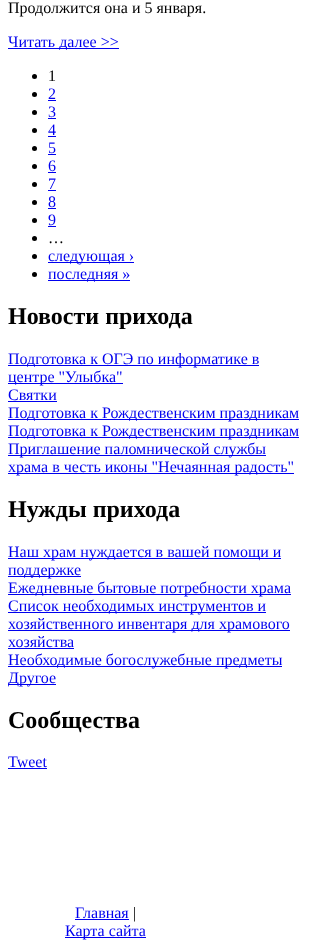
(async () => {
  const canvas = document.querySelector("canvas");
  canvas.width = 313;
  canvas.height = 951;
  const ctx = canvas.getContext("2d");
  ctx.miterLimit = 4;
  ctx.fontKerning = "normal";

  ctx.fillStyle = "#ffffff";
  ctx.fillRect(0, 0, 313, 951);
  ctx.fillStyle = "#0000ee";
  ctx.fillRect(8, 48, 111, 1);
  ctx.fillStyle = "#000000";
  ctx.beginPath();
  ctx.arc(34.5, 76.5, 2.5, 0, Math.PI * 2);
  ctx.fill();
  ctx.beginPath();
  ctx.arc(34.5, 94.5, 2.5, 0, Math.PI * 2);
  ctx.fill();
  ctx.fillStyle = "#0000ee";
  ctx.fillRect(48, 100, 8, 1);
  ctx.fillStyle = "#000000";
  ctx.beginPath();
  ctx.arc(34.5, 112.5, 2.5, 0, Math.PI * 2);
  ctx.fill();
  ctx.fillStyle = "#0000ee";
  ctx.fillRect(48, 118, 8, 1);
  ctx.fillStyle = "#000000";
  ctx.beginPath();
  ctx.arc(34.5, 130.5, 2.5, 0, Math.PI * 2);
  ctx.fill();
  ctx.fillStyle = "#0000ee";
  ctx.fillRect(48, 136, 8, 1);
  ctx.fillStyle = "#000000";
  ctx.beginPath();
  ctx.arc(34.5, 148.5, 2.5, 0, Math.PI * 2);
  ctx.fill();
  ctx.fillStyle = "#0000ee";
  ctx.fillRect(48, 154, 8, 1);
  ctx.fillStyle = "#000000";
  ctx.beginPath();
  ctx.arc(34.5, 166.5, 2.5, 0, Math.PI * 2);
  ctx.fill();
  ctx.fillStyle = "#0000ee";
  ctx.fillRect(48, 172, 8, 1);
  ctx.fillStyle = "#000000";
  ctx.beginPath();
  ctx.arc(34.5, 184.5, 2.5, 0, Math.PI * 2);
  ctx.fill();
  ctx.fillStyle = "#0000ee";
  ctx.fillRect(48, 190, 8, 1);
  ctx.fillStyle = "#000000";
  ctx.beginPath();
  ctx.arc(34.5, 202.5, 2.5, 0, Math.PI * 2);
  ctx.fill();
  ctx.fillStyle = "#0000ee";
  ctx.fillRect(48, 208, 8, 1);
  ctx.fillStyle = "#000000";
  ctx.beginPath();
  ctx.arc(34.5, 220.5, 2.5, 0, Math.PI * 2);
  ctx.fill();
  ctx.fillStyle = "#0000ee";
  ctx.fillRect(48, 226, 8, 1);
  ctx.fillStyle = "#000000";
  ctx.beginPath();
  ctx.arc(34.5, 238.5, 2.5, 0, Math.PI * 2);
  ctx.fill();
  ctx.beginPath();
  ctx.arc(34.5, 256.5, 2.5, 0, Math.PI * 2);
  ctx.fill();
  ctx.fillStyle = "#0000ee";
  ctx.fillRect(48, 262, 86, 1);
  ctx.fillStyle = "#000000";
  ctx.beginPath();
  ctx.arc(34.5, 274.5, 2.5, 0, Math.PI * 2);
  ctx.fill();
  for (const [x, y, w, h, color] of [
    [48, 280, 82, 1, "#0000ee"],
    [8, 365, 251, 1, "#0000ee"],
    [8, 383, 115, 1, "#0000ee"],
    [8, 401, 49, 1, "#0000ee"],
    [8, 419, 291, 1, "#0000ee"],
    [8, 437, 291, 1, "#0000ee"],
    [8, 455, 258, 1, "#0000ee"],
    [8, 473, 286, 1, "#0000ee"],
    [8, 558, 273, 1, "#0000ee"],
    [8, 576, 73, 1, "#0000ee"],
    [8, 594, 283, 1, "#0000ee"],
    [8, 612, 258, 1, "#0000ee"],
    [8, 630, 282, 1, "#0000ee"],
    [8, 648, 66, 1, "#0000ee"],
    [8, 666, 274, 1, "#0000ee"],
    [8, 684, 48, 1, "#0000ee"],
    [8, 768, 39, 1, "#0000ee"],
    [75, 919, 54, 1, "#0000ee"],
    [65, 937, 81, 1, "#0000ee"],
  ]) {
    ctx.fillStyle = color;
    ctx.fillRect(x, y, w, h);
  }
  ctx.font = "16px Liberation Serif";
  ctx.fillStyle = "#000000";
  ctx.fillText("Продолжится она и 5 января.", 8, 13);
  ctx.fillStyle = "#0000ee";
  ctx.fillText("Читать далее >>", 8, 47);
  ctx.fillStyle = "#000000";
  ctx.fillText("1", 48, 81);
  ctx.fillStyle = "#0000ee";
  for (const [text, x, y] of [
    ["2", 48, 99],
    ["3", 48, 117],
    ["4", 48, 135],
    ["5", 48, 153],
    ["6", 48, 171],
    ["7", 48, 189],
    ["8", 48, 207],
    ["9", 48, 225],
  ]) {
    ctx.fillText(text, x, y);
  }
  ctx.fillStyle = "#000000";
  ctx.fillText("…", 48, 243);
  ctx.fillStyle = "#0000ee";
  ctx.fillText("следующая ›", 48, 261);
  ctx.fillText("последняя »", 48, 279);
  ctx.font = "bold 24px Liberation Serif";
  ctx.fillStyle = "#000000";
  ctx.fillText("Новости прихода", 8, 324);
  ctx.font = "16px Liberation Serif";
  ctx.fillStyle = "#0000ee";
  for (const [text, x, y] of [
    ["Подготовка к ОГЭ по информатике в", 8, 364],
    ["центре \"Улыбка\"", 8, 382],
    ["Святки", 8, 400],
    ["Подготовка к Рождественским праздникам", 8, 418],
    ["Подготовка к Рождественским праздникам", 8, 436],
    ["Приглашение паломнической службы", 8, 454],
    ["храма в честь иконы \"Нечаянная радость\"", 8, 472],
  ]) {
    ctx.fillText(text, x, y);
  }
  ctx.font = "bold 24px Liberation Serif";
  ctx.fillStyle = "#000000";
  ctx.fillText("Нужды прихода", 8, 517);
  ctx.font = "16px Liberation Serif";
  ctx.fillStyle = "#0000ee";
  for (const [text, x, y] of [
    ["Наш храм нуждается в вашей помощи и", 8, 557],
    ["поддержке", 8, 575],
    ["Ежедневные бытовые потребности храма", 8, 593],
    ["Список необходимых инструментов и", 8, 611],
    ["хозяйственного инвентаря для храмового", 8, 629],
    ["хозяйства", 8, 647],
    ["Необходимые богослужебные предметы", 8, 665],
    ["Другое", 8, 683],
  ]) {
    ctx.fillText(text, x, y);
  }
  ctx.font = "bold 24px Liberation Serif";
  ctx.fillStyle = "#000000";
  ctx.fillText("Сообщества", 8, 728);
  ctx.font = "16px Liberation Serif";
  ctx.fillStyle = "#0000ee";
  ctx.fillText("Tweet", 8, 767);
  ctx.fillText("Главная", 75, 918);
  ctx.fillStyle = "#000000";
  ctx.fillText("|", 133, 918);
  ctx.fillStyle = "#0000ee";
  ctx.fillText("Карта сайта", 65, 936);
})();
